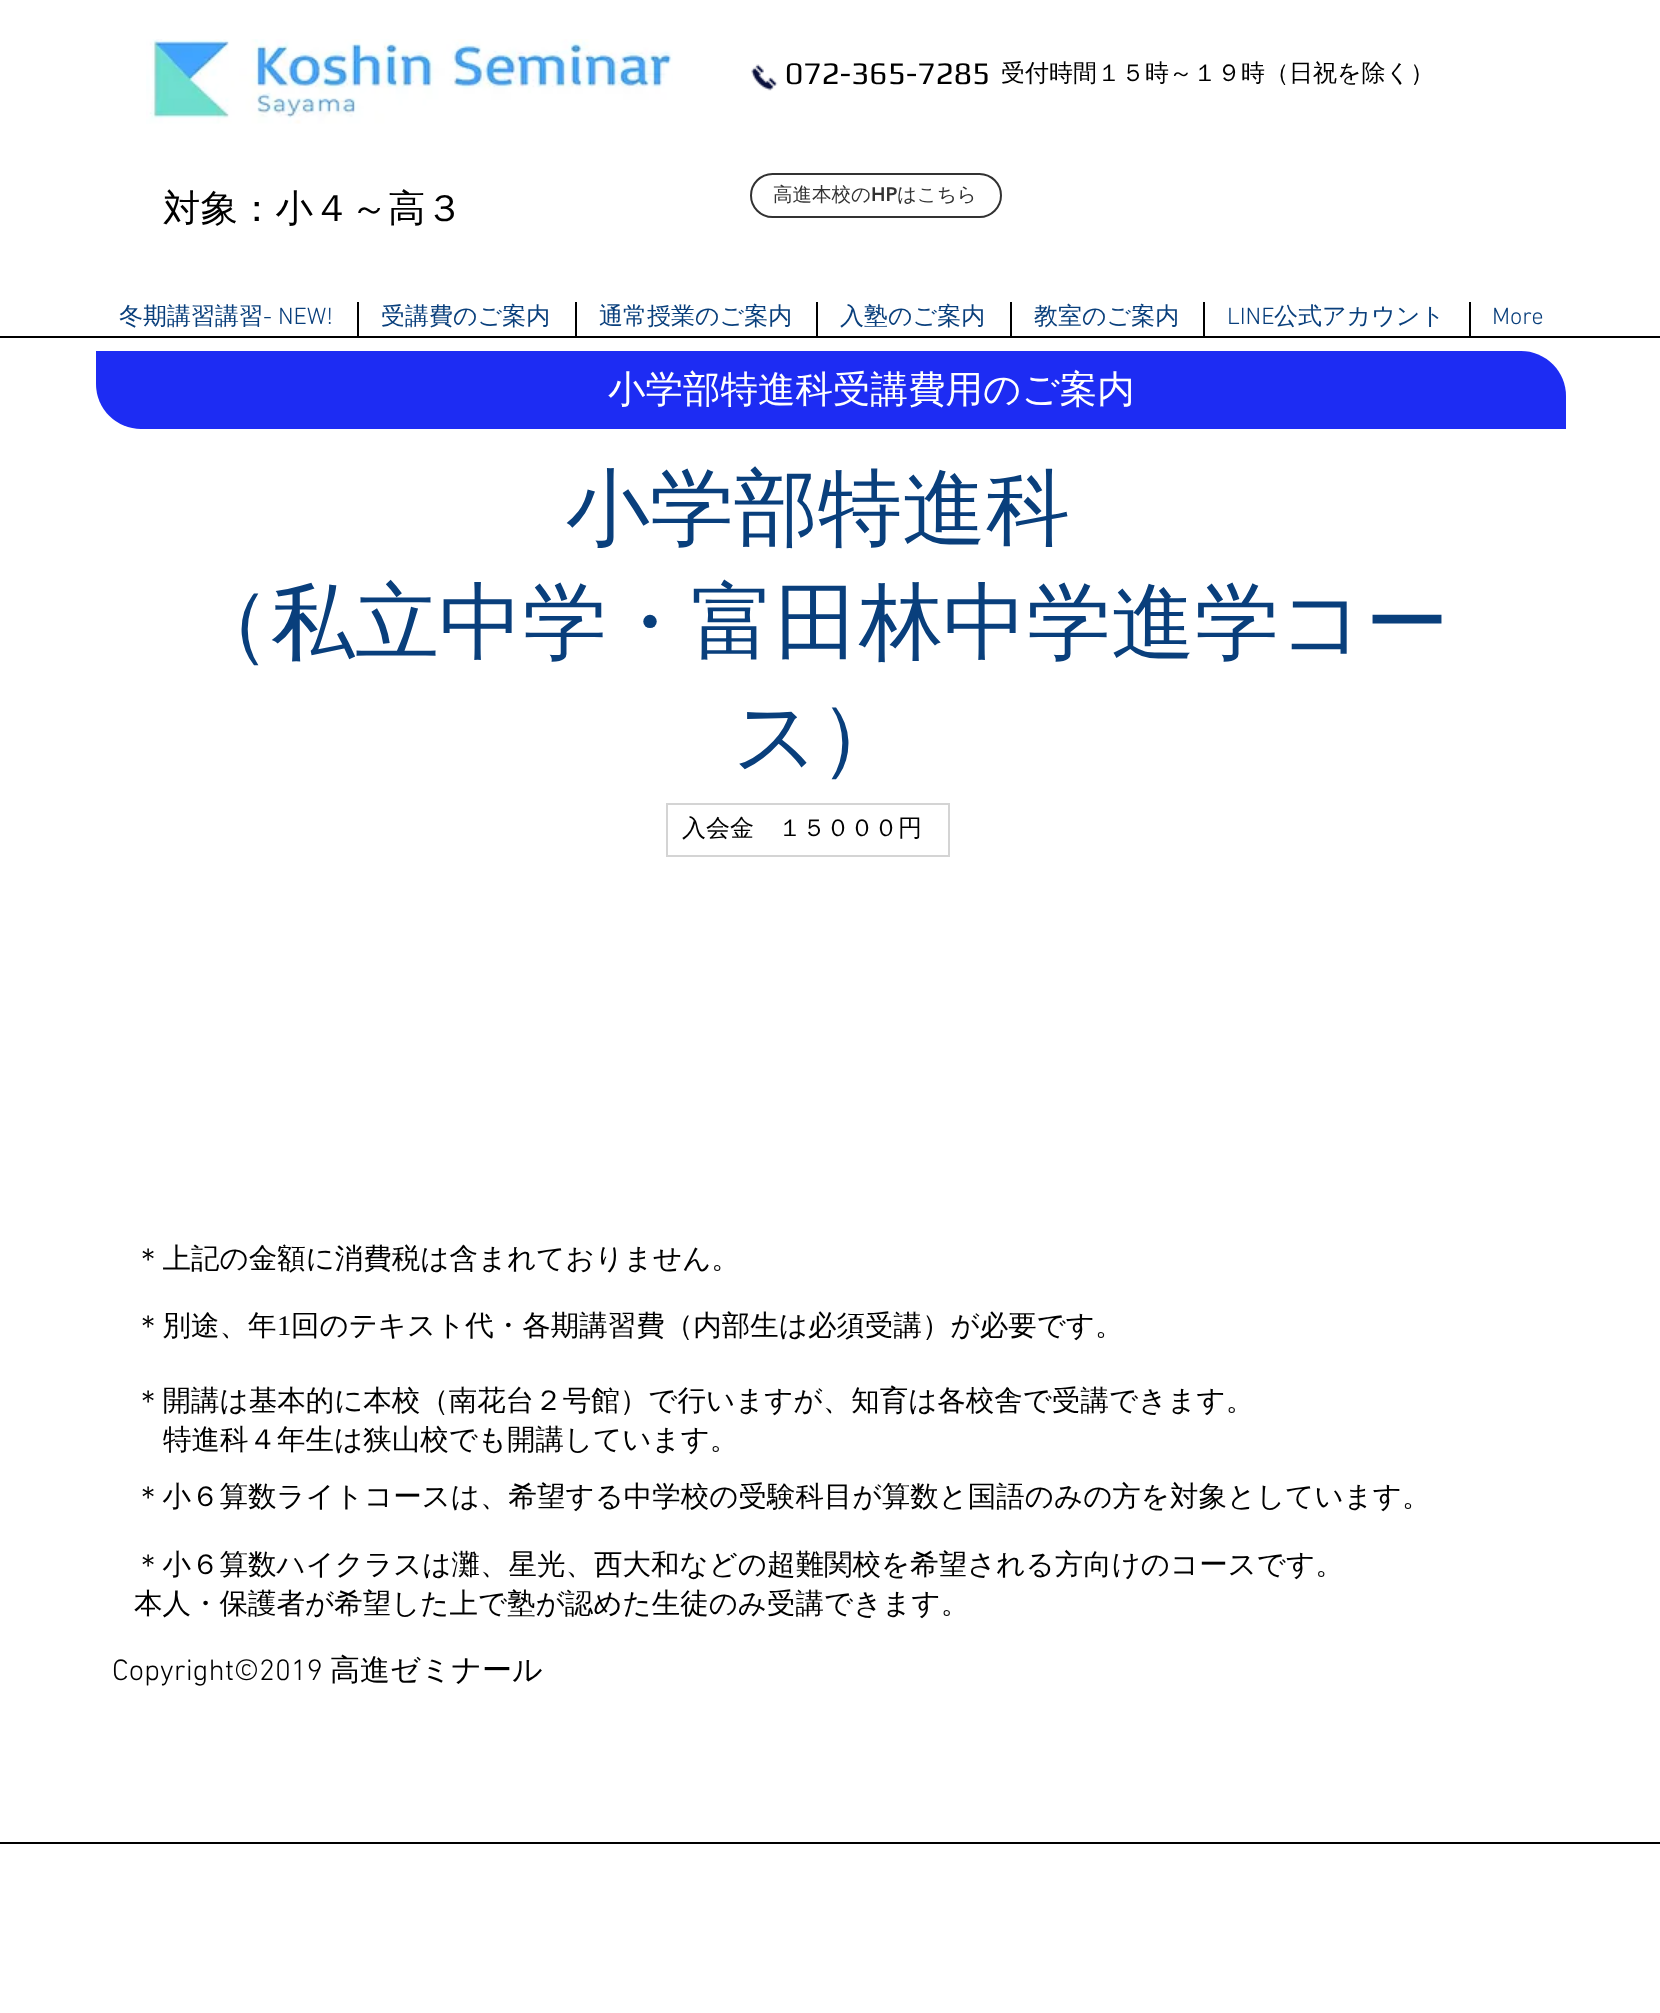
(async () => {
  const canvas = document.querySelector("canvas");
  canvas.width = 1660;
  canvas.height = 2013;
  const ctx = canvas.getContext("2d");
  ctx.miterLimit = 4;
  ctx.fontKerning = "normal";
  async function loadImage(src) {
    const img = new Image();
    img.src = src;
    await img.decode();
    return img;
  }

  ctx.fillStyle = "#ffffff";
  ctx.fillRect(0, 0, 1660, 2013);
  ctx.drawImage(await loadImage("img/1.png"), 146, 39, 527, 85);
  ctx.drawImage(await loadImage("img/2.png"), 751, 64, 27, 27);
  ctx.beginPath();
  ctx.roundRect(751, 174, 250, 43, 21.5);
  ctx.strokeStyle = "#323232";
  ctx.lineWidth = 2;
  ctx.stroke();
  for (const [x, y, w, h, color] of [
    [357, 302, 2, 34, "#000000"],
    [575, 302, 2, 34, "#000000"],
    [816, 302, 2, 34, "#000000"],
    [1010, 302, 2, 34, "#000000"],
    [1203, 302, 2, 34, "#000000"],
    [1469, 302, 2, 34, "#000000"],
    [0, 336, 1660, 2, "#000000"],
  ]) {
    ctx.fillStyle = color;
    ctx.fillRect(x, y, w, h);
  }
  ctx.fillStyle = "#1d2cf3";
  ctx.beginPath();
  ctx.roundRect(96, 351, 1470, 78, [0, 45, 0, 45]);
  ctx.fill();
  ctx.strokeStyle = "#d4d4d4";
  ctx.strokeRect(667, 804, 282, 52);
  ctx.fillStyle = "#000000";
  ctx.fillRect(0, 1842, 1660, 2);
  ctx.font = "31.5px Play";
  ctx.fillText("072-365-7285", 785, 84);
  ctx.font = "500 24px WenQuanYi Zen Hei";
  ctx.fillText("受付時間１５時～１９時（日祝を除く）", 1001, 81);
  ctx.font = "500 37.5px WenQuanYi Zen Hei";
  ctx.fillText("対象：小４～高３", 163, 221);
  ctx.font = "500 19.5px WenQuanYi Zen Hei";
  ctx.fillStyle = "#323232";
  ctx.fillText("高進本校の", 773, 201);
  ctx.font = "900 19.5px 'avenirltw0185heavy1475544'";
  ctx.fillText("HP", 871, 201);
  ctx.font = "500 19.5px WenQuanYi Zen Hei";
  ctx.fillText("はこちら", 897, 201);
  ctx.font = "500 24px WenQuanYi Zen Hei";
  ctx.fillStyle = "#093f7c";
  ctx.fillText("冬期講習講習", 119, 324);
  ctx.font = "300 24px 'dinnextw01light'";
  ctx.fillText("- NEW!", 263, 324);
  ctx.font = "500 24px WenQuanYi Zen Hei";
  for (const [text, x, y] of [
    ["受講費のご案内", 381, 324],
    ["通常授業のご案内", 599, 324],
    ["入塾のご案内", 840, 324],
    ["教室のご案内", 1034, 324],
  ]) {
    ctx.fillText(text, x, y);
  }
  ctx.font = "300 24px 'dinnextw01light'";
  ctx.fillText("LINE", 1227, 324);
  ctx.font = "500 24px WenQuanYi Zen Hei";
  ctx.fillText("公式アカウント", 1274, 324);
  ctx.font = "300 24px 'dinnextw01light'";
  ctx.fillText("More", 1492, 324);
  ctx.font = "500 37.5px WenQuanYi Zen Hei";
  ctx.fillStyle = "#ffffff";
  ctx.fillText("小学部特進科受講費用のご案内", 608, 402);
  ctx.font = "500 84px WenQuanYi Zen Hei";
  ctx.fillStyle = "#093f7c";
  for (const [text, x, y] of [
    ["小学部特進科", 566, 537],
    ["（私立中学・富田林中学進学コー", 187, 651],
    ["ス）", 733, 765],
  ]) {
    ctx.fillText(text, x, y);
  }
  ctx.font = "500 24px WenQuanYi Zen Hei";
  ctx.fillStyle = "#000000";
  ctx.fillText("入会金　１５０００円", 682, 836);
  ctx.font = "500 28.5px WenQuanYi Zen Hei";
  ctx.fillText("＊上記の金額に消費税は含まれておりません。", 134, 1268);
  ctx.fillText("＊別途、年", 134, 1335);
  ctx.font = "28.5px Liberation Serif";
  ctx.fillText("1", 277, 1335);
  ctx.font = "500 28.5px WenQuanYi Zen Hei";
  for (const [text, x, y] of [
    ["回のテキスト代・各期講習費（内部生は必須受講）が必要です。", 291, 1335],
    ["＊開講は基本的に本校（南花台２号館）で行いますが、知育は各校舎で受講できます。", 134, 1410],
    ["特進科４年生は狭山校でも開講しています。", 163, 1449],
    ["＊小６算数ライトコースは、希望する中学校の受験科目が算数と国語のみの方を対象としています。", 134, 1506],
    ["＊小６算数ハイクラスは灘、星光、西大和などの超難関校を希望される方向けのコースです。", 134, 1574],
    ["本人・保護者が希望した上で塾が認めた生徒のみ受講できます。", 134, 1613],
  ]) {
    ctx.fillText(text, x, y);
  }
  ctx.font = "300 30px 'dinnextw01light'";
  ctx.fillText("Copyright©2019", 112, 1680);
  ctx.font = "500 30px WenQuanYi Zen Hei";
  ctx.fillText("高進ゼミナール", 330, 1680);
})();
